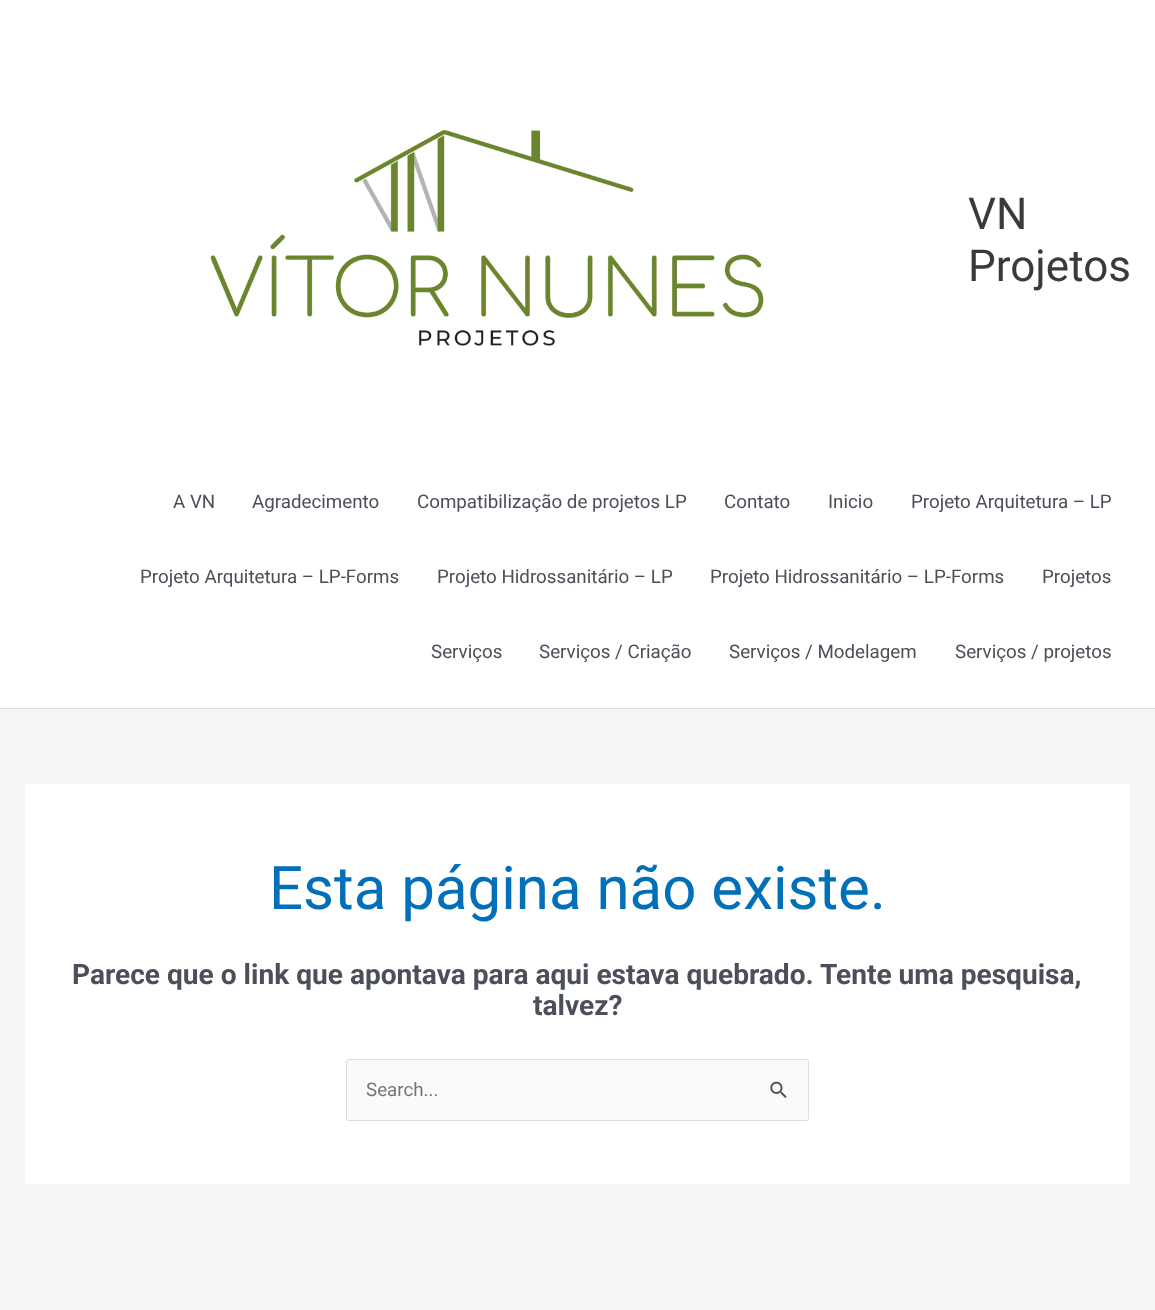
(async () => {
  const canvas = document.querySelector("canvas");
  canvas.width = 1155;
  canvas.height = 1310;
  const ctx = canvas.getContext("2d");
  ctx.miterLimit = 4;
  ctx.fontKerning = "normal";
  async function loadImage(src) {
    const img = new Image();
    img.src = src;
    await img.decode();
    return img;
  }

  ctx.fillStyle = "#f5f5f5";
  ctx.fillRect(0, 0, 1155, 1310);
  ctx.fillStyle = "#ffffff";
  ctx.fillRect(0, 0, 1155, 708);
  ctx.fillStyle = "#dddddd";
  ctx.fillRect(0, 708, 1155, 1);
  ctx.drawImage(await loadImage("img/1.png"), 210, 130, 554, 216);
  ctx.fillStyle = "#ffffff";
  ctx.fillRect(25, 784, 1105, 400);
  ctx.fillStyle = "#fafafa";
  ctx.beginPath();
  ctx.roundRect(346.5, 1059.5, 462, 61, 2);
  ctx.fill();
  ctx.strokeStyle = "#dddddd";
  ctx.stroke();
  ctx.drawImage(await loadImage("img/2.png"), 770, 1081, 17, 17);
  ctx.font = "44px Roboto";
  ctx.fillStyle = "#3a3a3a";
  ctx.fillText("VN", 968, 229);
  ctx.fillText("Projetos", 968, 281);
  ctx.font = "18.75px Roboto";
  ctx.fillStyle = "#4b4f58";
  for (const [text, x, y] of [
    ["A VN", 173, 508],
    ["Agradecimento", 252, 508],
    ["Compatibilização de projetos LP", 417, 508],
    ["Contato", 724, 508],
    ["Inicio", 828, 508],
    ["Projeto Arquitetura – LP", 911, 508],
    ["Projeto Arquitetura – LP-Forms", 140, 583],
    ["Projeto Hidrossanitário – LP", 437, 583],
    ["Projeto Hidrossanitário – LP-Forms", 710, 583],
    ["Projetos", 1042, 583],
    ["Serviços", 431, 658],
    ["Serviços / Criação", 539, 658],
    ["Serviços / Modelagem", 729, 658],
    ["Serviços / projetos", 955, 658],
  ]) {
    ctx.fillText(text, x, y);
  }
  ctx.font = "60px Roboto";
  ctx.fillStyle = "#0170b9";
  ctx.fillText("Esta página não existe.", 269, 909);
  ctx.font = "bold 28.1px Roboto";
  ctx.fillStyle = "#4b4f58";
  ctx.fillText("Parece que o link que apontava para aqui estava quebrado. Tente uma pesquisa,", 72, 984);
  ctx.fillText("talvez?", 533, 1015);
  ctx.font = "18.75px Roboto";
  ctx.fillStyle = "#757575";
  ctx.fillText("Search...", 366, 1096);
})();
